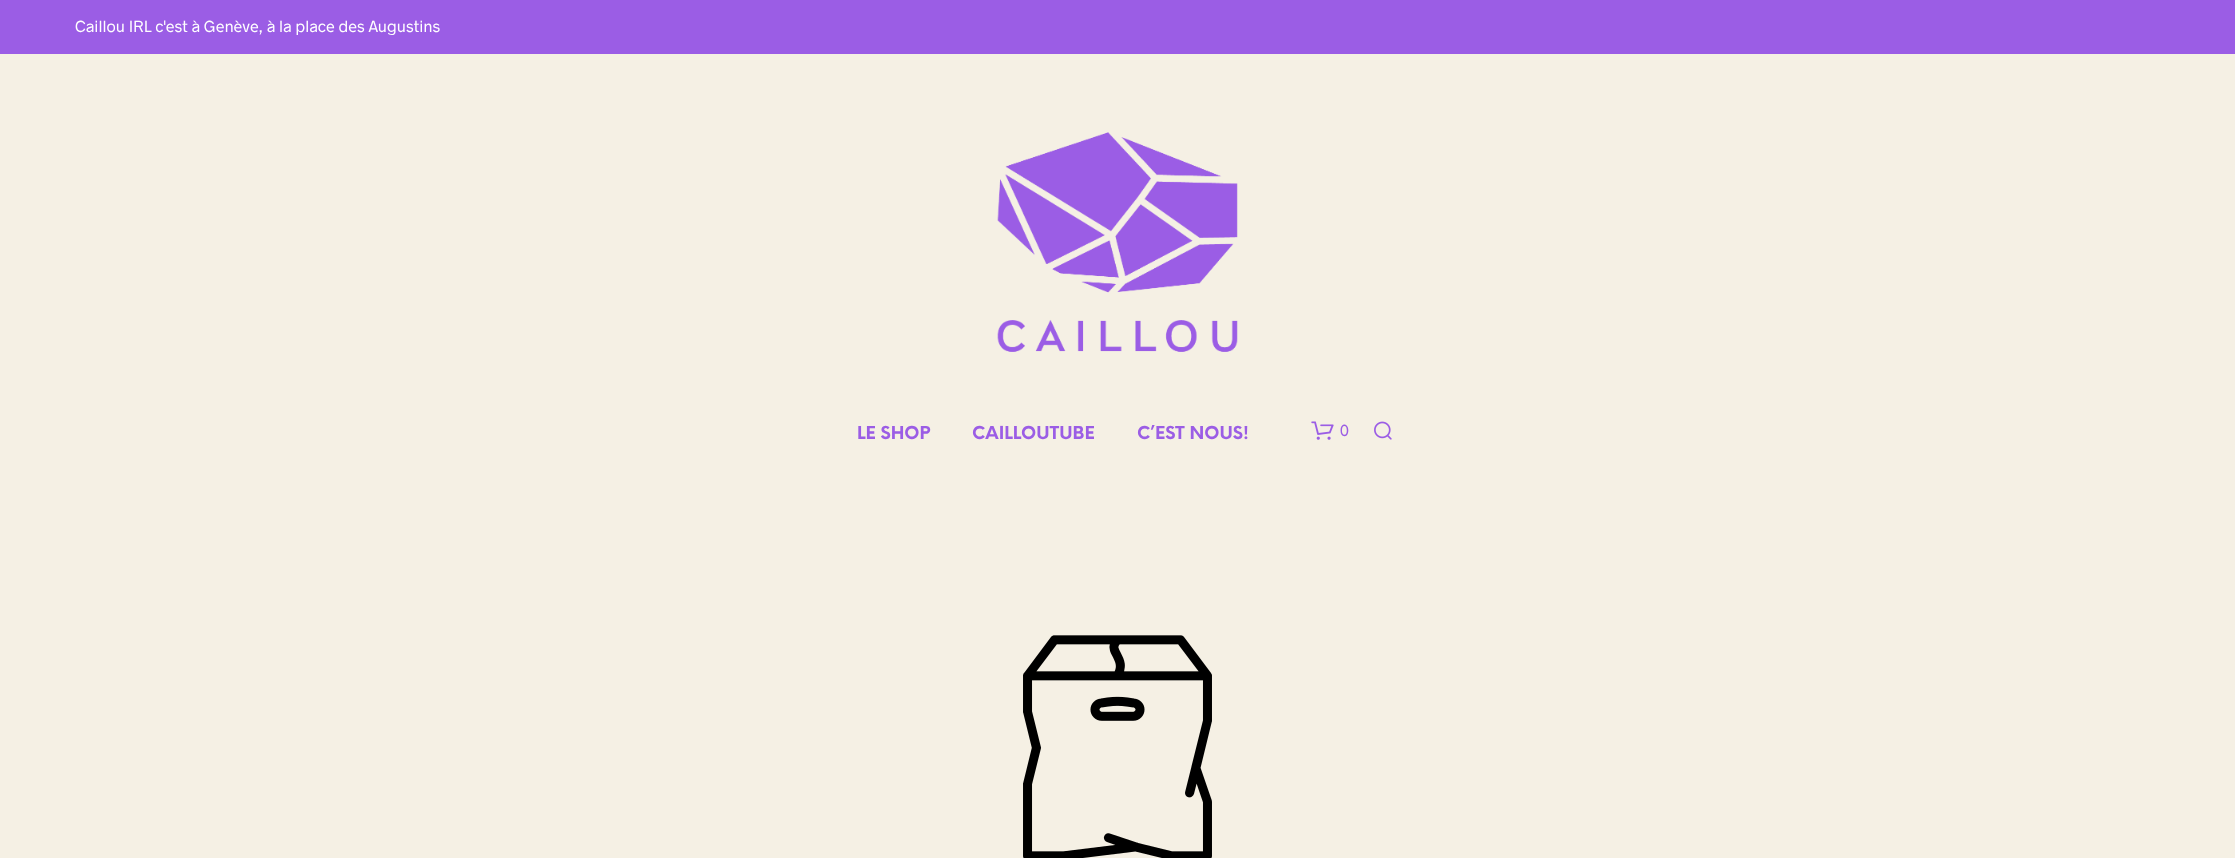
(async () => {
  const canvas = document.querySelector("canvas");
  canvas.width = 2235;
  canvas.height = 858;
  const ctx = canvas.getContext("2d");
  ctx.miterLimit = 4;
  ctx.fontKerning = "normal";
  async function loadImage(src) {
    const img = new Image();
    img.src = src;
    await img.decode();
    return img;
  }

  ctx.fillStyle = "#f5f0e4";
  ctx.fillRect(0, 0, 2235, 858);
  ctx.fillStyle = "#9b5de5";
  ctx.fillRect(0, 0, 2235, 54);
  ctx.drawImage(await loadImage("img/1.png"), 997, 132, 241, 220);
  ctx.drawImage(await loadImage("img/2.png"), 1311, 421, 23, 19);
  ctx.drawImage(await loadImage("img/3.png"), 1374, 421, 18, 19);
  ctx.drawImage(await loadImage("img/4.png"), 1023, 635, 189, 223);
  ctx.font = "16.25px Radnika";
  ctx.fillStyle = "#ffffff";
  ctx.fillText("Caillou IRL c'est à Genève, à la place des Augustins", 75, 32);
  ctx.font = "bold 17.5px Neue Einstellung";
  ctx.fillStyle = "#9b5de5";
  for (const [text, x, y] of [
    ["LE SHOP", 857, 439],
    ["CAILLOUTUBE", 972, 439],
    ["C’EST NOUS!", 1137, 439],
  ]) {
    ctx.fillText(text, x, y);
  }
  ctx.font = "16.25px Radnika";
  ctx.fillText("0", 1340, 436);
})();
